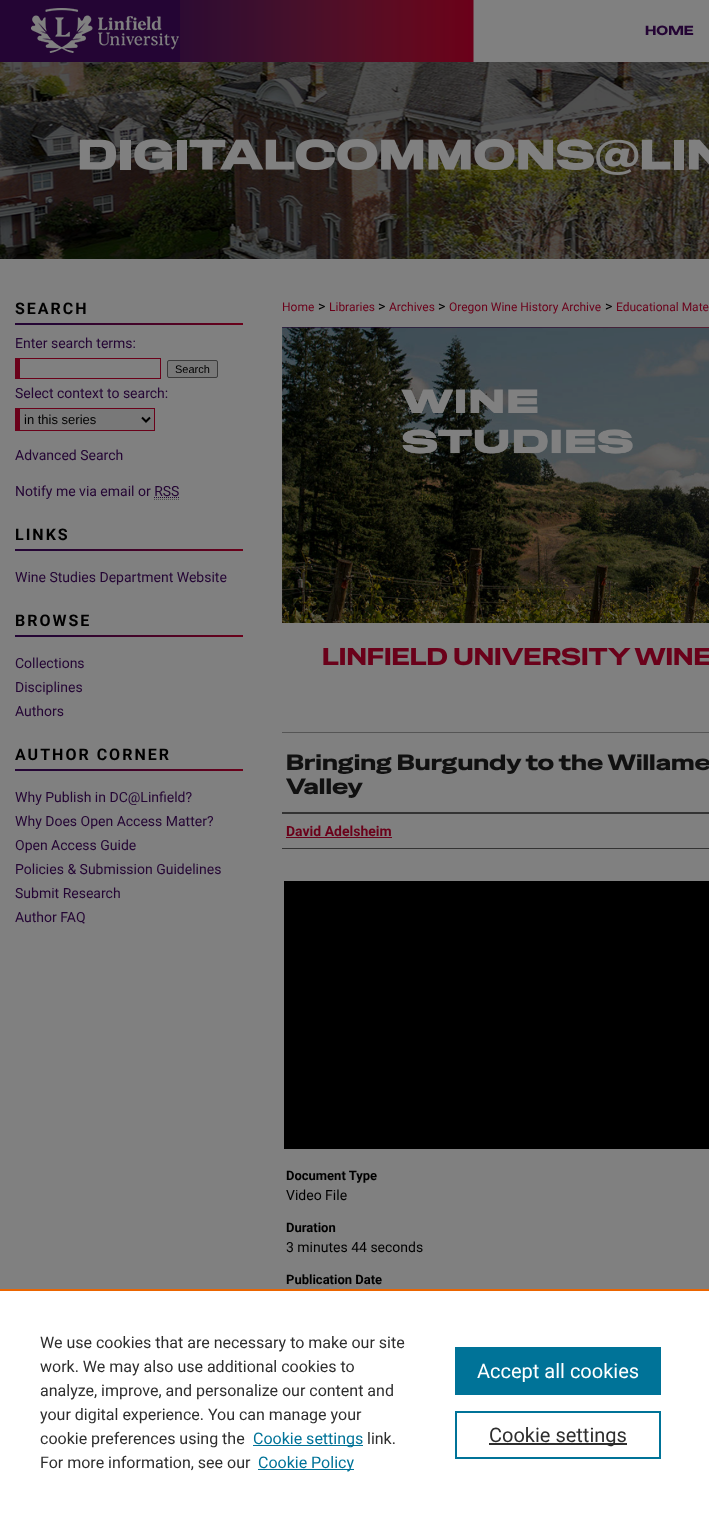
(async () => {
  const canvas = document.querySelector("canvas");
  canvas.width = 709;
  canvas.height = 1515;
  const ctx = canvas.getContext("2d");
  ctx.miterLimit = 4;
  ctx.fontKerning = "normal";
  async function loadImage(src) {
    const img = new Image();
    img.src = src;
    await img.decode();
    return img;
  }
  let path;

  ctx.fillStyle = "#808080";
  ctx.fillRect(0, 0, 709, 1515);
  ctx.drawImage(await loadImage("img/1.png"), 0, 0, 709, 259);
  ctx.drawImage(await loadImage("img/2.png"), 31, 0, 149, 62);
  ctx.drawImage(await loadImage("img/3.png"), 79, 139, 630, 36);
  ctx.drawImage(await loadImage("img/4.png"), 15, 323, 228, 2);
  for (const [x, y, w, h, color] of [
    [15, 358, 146, 1, "#6a011a"],
    [160, 358, 1, 21, "#6a011a"],
    [15, 378, 146, 1, "#6a011a"],
    [15, 358, 5, 21, "#6a011a"],
  ]) {
    ctx.fillStyle = color;
    ctx.fillRect(x, y, w, h);
  }
  ctx.fillStyle = "#787878";
  ctx.beginPath();
  ctx.roundRect(167.5, 360.5, 50, 17, 1.5);
  ctx.fill();
  ctx.strokeStyle = "#3b3b3b";
  ctx.stroke();
  for (const [x, y, w, h, color] of [
    [20, 409, 134, 21, "#787878"],
    [15, 408, 140, 1, "#6a011a"],
    [154, 408, 1, 23, "#6a011a"],
    [15, 430, 140, 1, "#6a011a"],
    [15, 408, 5, 23, "#6a011a"],
  ]) {
    ctx.fillStyle = color;
    ctx.fillRect(x, y, w, h);
  }
  path = new Path2D("M142 417.5L146 421.5L150 417.5");
  ctx.strokeStyle = "#000000";
  ctx.lineWidth = 2;
  ctx.stroke(path);
  path = new Path2D("M154 497.5H179.5");
  ctx.strokeStyle = "#240534";
  ctx.lineWidth = 1;
  ctx.setLineDash([1, 1]);
  ctx.stroke(path);
  path = new Path2D("M154 499.5H179");
  ctx.strokeStyle = "#4d4d4d";
  ctx.stroke(path);
  ctx.drawImage(await loadImage("img/5.png"), 15, 549, 228, 2);
  ctx.drawImage(await loadImage("img/6.png"), 15, 635, 228, 2);
  ctx.drawImage(await loadImage("img/6.png"), 15, 769, 228, 2);
  ctx.drawImage(await loadImage("img/7.png"), 282, 327, 427, 296);
  for (const [x, y, w, h, color] of [
    [282, 732, 427, 1, "#555555"],
    [282, 812, 427, 2, "#333333"],
    [282, 848, 427, 1, "#333333"],
    [286, 837, 106, 1, "#6a011a"],
    [284, 881, 425, 268, "#000000"],
    [0, 1291, 709, 224, "#ffffff"],
    [0, 1289, 709, 2, "#eb6500"],
    [253, 1445, 110, 1, "#007398"],
    [258, 1469, 96, 1, "#007398"],
    [455, 1347, 206, 48, "#007398"],
  ]) {
    ctx.fillStyle = color;
    ctx.fillRect(x, y, w, h);
  }
  ctx.strokeStyle = "#007398";
  ctx.lineWidth = 2;
  ctx.setLineDash([]);
  ctx.strokeRect(456, 1412, 204, 46);
  ctx.fillStyle = "#2e2e2e";
  ctx.fillRect(489, 1443, 138, 2);
  ctx.font = "13px Special Gothic Expanded One";
  ctx.fillStyle = "#240534";
  ctx.fillText("HOME", 645, 35);
  ctx.letterSpacing = "2px";
  ctx.font = "bold 16px Roboto";
  ctx.fillStyle = "#000000";
  ctx.fillText("SEARCH", 15, 314);
  ctx.letterSpacing = "0px";
  ctx.font = "14px Roboto";
  ctx.fillStyle = "#240534";
  ctx.fillText("Enter search terms:", 15, 348);
  ctx.font = "11px Liberation Sans";
  ctx.fillStyle = "#000000";
  ctx.fillText("Search", 175, 373);
  ctx.font = "14px Roboto";
  ctx.fillStyle = "#240534";
  ctx.fillText("Select context to search:", 15, 398);
  ctx.font = "13px Liberation Sans";
  ctx.fillStyle = "#000000";
  ctx.fillText("in this series", 24, 424);
  ctx.font = "14px Roboto";
  ctx.fillStyle = "#240534";
  ctx.fillText("Advanced Search", 15, 460);
  ctx.fillText("Notify me via email or RSS", 15, 496);
  ctx.letterSpacing = "2px";
  ctx.font = "bold 16px Roboto";
  ctx.fillStyle = "#000000";
  ctx.fillText("LINKS", 15, 540);
  ctx.letterSpacing = "0px";
  ctx.font = "14px Roboto";
  ctx.fillStyle = "#240534";
  ctx.fillText("Wine Studies Department Website", 15, 582);
  ctx.letterSpacing = "2px";
  ctx.font = "bold 16px Roboto";
  ctx.fillStyle = "#000000";
  ctx.fillText("BROWSE", 15, 626);
  ctx.letterSpacing = "0px";
  ctx.font = "14px Roboto";
  ctx.fillStyle = "#240534";
  for (const [text, x, y] of [
    ["Collections", 15, 668],
    ["Disciplines", 15, 692],
    ["Authors", 15, 716],
  ]) {
    ctx.fillText(text, x, y);
  }
  ctx.letterSpacing = "2px";
  ctx.font = "bold 16px Roboto";
  ctx.fillStyle = "#000000";
  ctx.fillText("AUTHOR CORNER", 15, 760);
  ctx.letterSpacing = "0px";
  ctx.font = "14px Roboto";
  ctx.fillStyle = "#240534";
  for (const [text, x, y] of [
    ["Why Publish in DC@Linfield?", 15, 802],
    ["Why Does Open Access Matter?", 15, 826],
    ["Open Access Guide", 15, 850],
    ["Policies & Submission Guidelines", 15, 874],
    ["Submit Research", 15, 898],
    ["Author FAQ", 15, 922],
  ]) {
    ctx.fillText(text, x, y);
  }
  ctx.font = "12px Roboto";
  ctx.fillStyle = "#6a011a";
  ctx.fillText("Home", 282, 311);
  ctx.font = "14px Roboto";
  ctx.fillStyle = "#000000";
  ctx.fillText(">", 318, 311);
  ctx.font = "12px Roboto";
  ctx.fillStyle = "#6a011a";
  ctx.fillText("Libraries", 329, 311);
  ctx.font = "14px Roboto";
  ctx.fillStyle = "#000000";
  ctx.fillText(">", 378, 311);
  ctx.font = "12px Roboto";
  ctx.fillStyle = "#6a011a";
  ctx.fillText("Archives", 389, 311);
  ctx.font = "14px Roboto";
  ctx.fillStyle = "#000000";
  ctx.fillText(">", 438, 311);
  ctx.font = "12px Roboto";
  ctx.fillStyle = "#6a011a";
  ctx.fillText("Oregon Wine History Archive", 449, 311);
  ctx.font = "14px Roboto";
  ctx.fillStyle = "#000000";
  ctx.fillText(">", 605, 311);
  ctx.font = "12px Roboto";
  ctx.fillStyle = "#6a011a";
  ctx.fillText("Educational Mate", 616, 311);
  ctx.font = "24px Special Gothic Expanded One";
  ctx.fillText("LINFIELD UNIVERSITY WINE", 322, 665);
  ctx.font = "22px Special Gothic Expanded One";
  ctx.fillStyle = "#111111";
  ctx.fillText("Bringing Burgundy to the Willame", 286, 770);
  ctx.fillText("Valley", 286, 794);
  ctx.font = "bold 14px Roboto";
  ctx.fillStyle = "#6a011a";
  ctx.fillText("David Adelsheim", 286, 836);
  ctx.font = "bold 13px Roboto";
  ctx.fillStyle = "#000000";
  ctx.fillText("Document Type", 286, 1180);
  ctx.font = "14px Roboto";
  ctx.fillText("Video File", 286, 1200);
  ctx.font = "bold 13px Roboto";
  ctx.fillText("Duration", 286, 1232);
  ctx.font = "14px Roboto";
  ctx.fillText("3 minutes 44 seconds", 286, 1252);
  ctx.font = "bold 13px Roboto";
  ctx.fillText("Publication Date", 286, 1284);
  ctx.font = "16px Roboto";
  ctx.fillStyle = "#2e2e2e";
  for (const [text, x, y] of [
    ["We use cookies that are necessary to make our site", 40, 1348],
    ["work. We may also use additional cookies to", 40, 1372],
    ["analyze, improve, and personalize our content and", 40, 1396],
    ["your digital experience. You can manage your", 40, 1420],
    ["cookie preferences using the", 40, 1444],
  ]) {
    ctx.fillText(text, x, y);
  }
  ctx.fillStyle = "#007398";
  ctx.fillText("Cookie settings", 253, 1444);
  ctx.fillStyle = "#2e2e2e";
  ctx.fillText("link.", 367, 1444);
  ctx.fillText("For more information, see our", 40, 1468);
  ctx.fillStyle = "#007398";
  ctx.fillText("Cookie Policy", 258, 1468);
  ctx.font = "20px Roboto";
  ctx.fillStyle = "#ffffff";
  ctx.fillText("Accept all cookies", 477, 1378);
  ctx.fillStyle = "#2e2e2e";
  ctx.fillText("Cookie settings", 489, 1442);
})();
